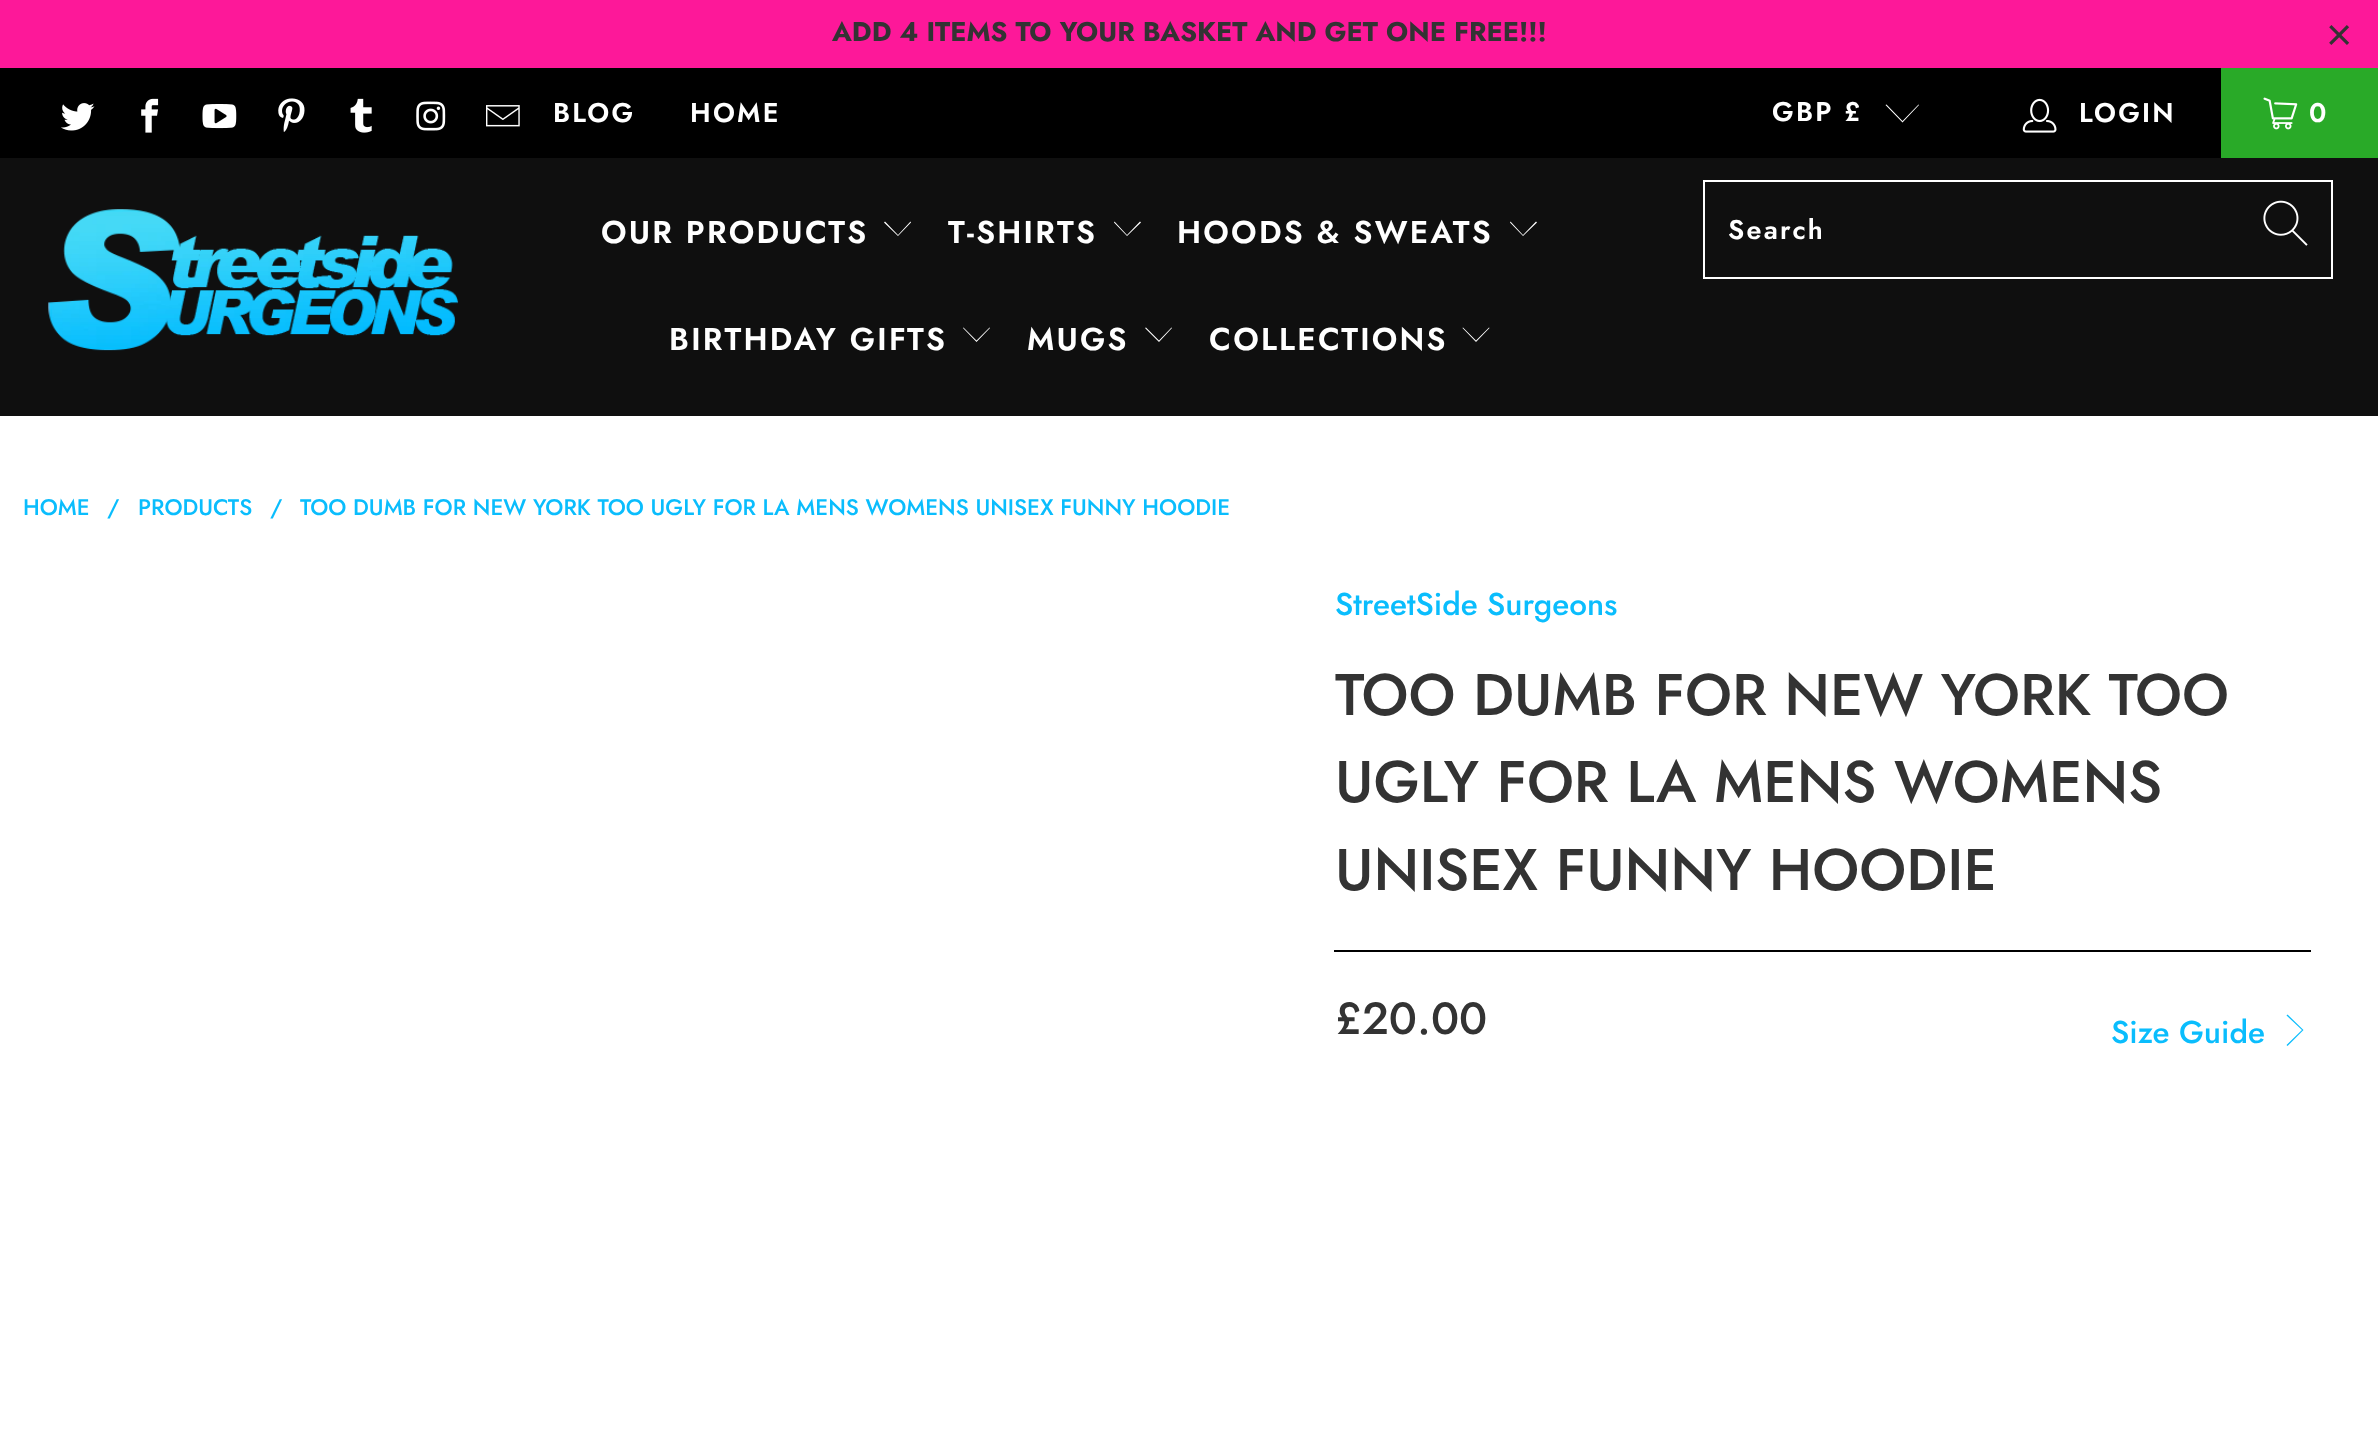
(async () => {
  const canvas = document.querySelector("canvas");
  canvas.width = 2378;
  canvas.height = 1429;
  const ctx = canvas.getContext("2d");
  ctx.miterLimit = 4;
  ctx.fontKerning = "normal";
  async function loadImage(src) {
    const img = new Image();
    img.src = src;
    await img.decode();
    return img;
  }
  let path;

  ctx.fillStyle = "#ffffff";
  ctx.fillRect(0, 0, 2378, 1429);
  ctx.fillStyle = "#fd1899";
  ctx.fillRect(0, 0, 2378, 68);
  ctx.fillStyle = "#000000";
  ctx.fillRect(0, 68, 2221, 90);
  ctx.drawImage(await loadImage("img/1.png"), 61, 103, 34, 28);
  ctx.drawImage(await loadImage("img/2.png"), 141, 98, 18, 35);
  ctx.drawImage(await loadImage("img/3.png"), 202, 104, 35, 25);
  ctx.drawImage(await loadImage("img/4.png"), 278, 98, 27, 34);
  ctx.drawImage(await loadImage("img/5.png"), 350, 98, 22, 35);
  ctx.drawImage(await loadImage("img/6.png"), 416, 101, 30, 30);
  ctx.drawImage(await loadImage("img/7.png"), 486, 105, 34, 22);
  ctx.fillStyle = "#ffffff";
  path = new Path2D("M1902.5 122.5L1885.5 105L1886.5 104.5L1902.5 121L1918.5 104.5L1919 105Z");
  ctx.fill(path);
  ctx.drawImage(await loadImage("img/8.png"), 2022, 98, 35, 35);
  ctx.fillStyle = "#29aa28";
  ctx.fillRect(2221, 68, 157, 90);
  ctx.drawImage(await loadImage("img/9.png"), 2263, 97, 35, 33);
  ctx.fillStyle = "#0f0f0f";
  ctx.fillRect(0, 158, 2378, 258);
  ctx.drawImage(await loadImage("img/10.png"), 48, 209, 411, 142);
  ctx.fillStyle = "#ffffff";
  path = new Path2D("M898 236L884 222.5L885 221.5L898 235L910.5 221.5L911 222.5Z");
  ctx.fill(path);
  path = new Path2D("M1127 236L1114 222.5L1114.5 221.5L1127 235L1140 221.5L1141 222.5Z");
  ctx.fill(path);
  path = new Path2D("M1523 236L1510 222.5L1510.5 221.5L1523 235L1536 221.5L1537 222.5Z");
  ctx.fill(path);
  path = new Path2D("M976.5 342L963 328L963.5 327.5L976.5 340.5L989.5 327.5L990 328Z");
  ctx.fill(path);
  path = new Path2D("M1159 342L1145 328L1146 327.5L1159 340.5L1171.5 327.5L1172 328Z");
  ctx.fill(path);
  path = new Path2D("M1476 342L1462.5 328L1463 327.5L1476 340.5L1489 327.5L1489.5 328Z");
  ctx.fill(path);
  ctx.strokeStyle = "#ffffff";
  ctx.lineWidth = 2;
  ctx.strokeRect(1704, 181, 628, 97);
  ctx.drawImage(await loadImage("img/11.png"), 2263, 200, 45, 46);
  ctx.fillStyle = "#000000";
  ctx.fillRect(1334, 950, 977, 2);
  ctx.fillStyle = "#0abdfd";
  path = new Path2D("M2287.5 1046L2286.5 1045L2302 1030L2286.5 1015.5L2287.5 1014.5L2303.5 1030Z");
  ctx.fill(path);
  ctx.font = "bold 27px Jost";
  ctx.fillStyle = "#333333";
  ctx.fillText("ADD 4 ITEMS TO YOUR BASKET AND GET ONE FREE!!!", 832, 41);
  ctx.font = "45px Liberation Sans";
  ctx.fillText("×", 2326, 50);
  ctx.letterSpacing = "2.25px";
  ctx.font = "600 27px Jost";
  ctx.fillStyle = "#ffffff";
  for (const [text, x, y] of [
    ["BLOG", 553, 122],
    ["HOME", 690, 122],
    ["GBP £", 1772, 121],
    ["LOGIN", 2079, 122],
    ["0", 2309, 122],
  ]) {
    ctx.fillText(text, x, y);
  }
  ctx.font = "600 31.5px Jost";
  for (const [text, x, y] of [
    ["OUR PRODUCTS", 601, 243],
    ["T-SHIRTS", 948, 243],
    ["HOODS & SWEATS", 1177, 243],
    ["BIRTHDAY GIFTS", 669, 350],
    ["MUGS", 1027, 350],
    ["COLLECTIONS", 1209, 350],
  ]) {
    ctx.fillText(text, x, y);
  }
  ctx.font = "600 27px Jost";
  ctx.fillText("Search", 1728, 239);
  ctx.letterSpacing = "0px";
  ctx.font = "500 22.5px Jost";
  ctx.fillStyle = "#0abdfd";
  for (const [text, x, y] of [
    ["HOME", 23, 515],
    ["/", 107, 515],
    ["PRODUCTS", 138, 515],
    ["/", 270, 515],
    ["TOO DUMB FOR NEW YORK TOO UGLY FOR LA MENS WOMENS UNISEX FUNNY HOODIE", 300, 515],
  ]) {
    ctx.fillText(text, x, y);
  }
  ctx.font = "500 31.5px Jost";
  ctx.fillText("StreetSide Surgeons", 1335, 615);
  ctx.font = "500 58.5px Jost";
  ctx.fillStyle = "#333333";
  for (const [text, x, y] of [
    ["TOO DUMB FOR NEW YORK TOO", 1335, 715],
    ["UGLY FOR LA MENS WOMENS", 1335, 802],
    ["UNISEX FUNNY HOODIE", 1335, 890],
  ]) {
    ctx.fillText(text, x, y);
  }
  ctx.font = "500 45px Jost";
  ctx.fillText("£20.00", 1335, 1034);
  ctx.font = "500 31.5px Jost";
  ctx.fillStyle = "#0abdfd";
  ctx.fillText("Size Guide", 2111, 1043);
})();
